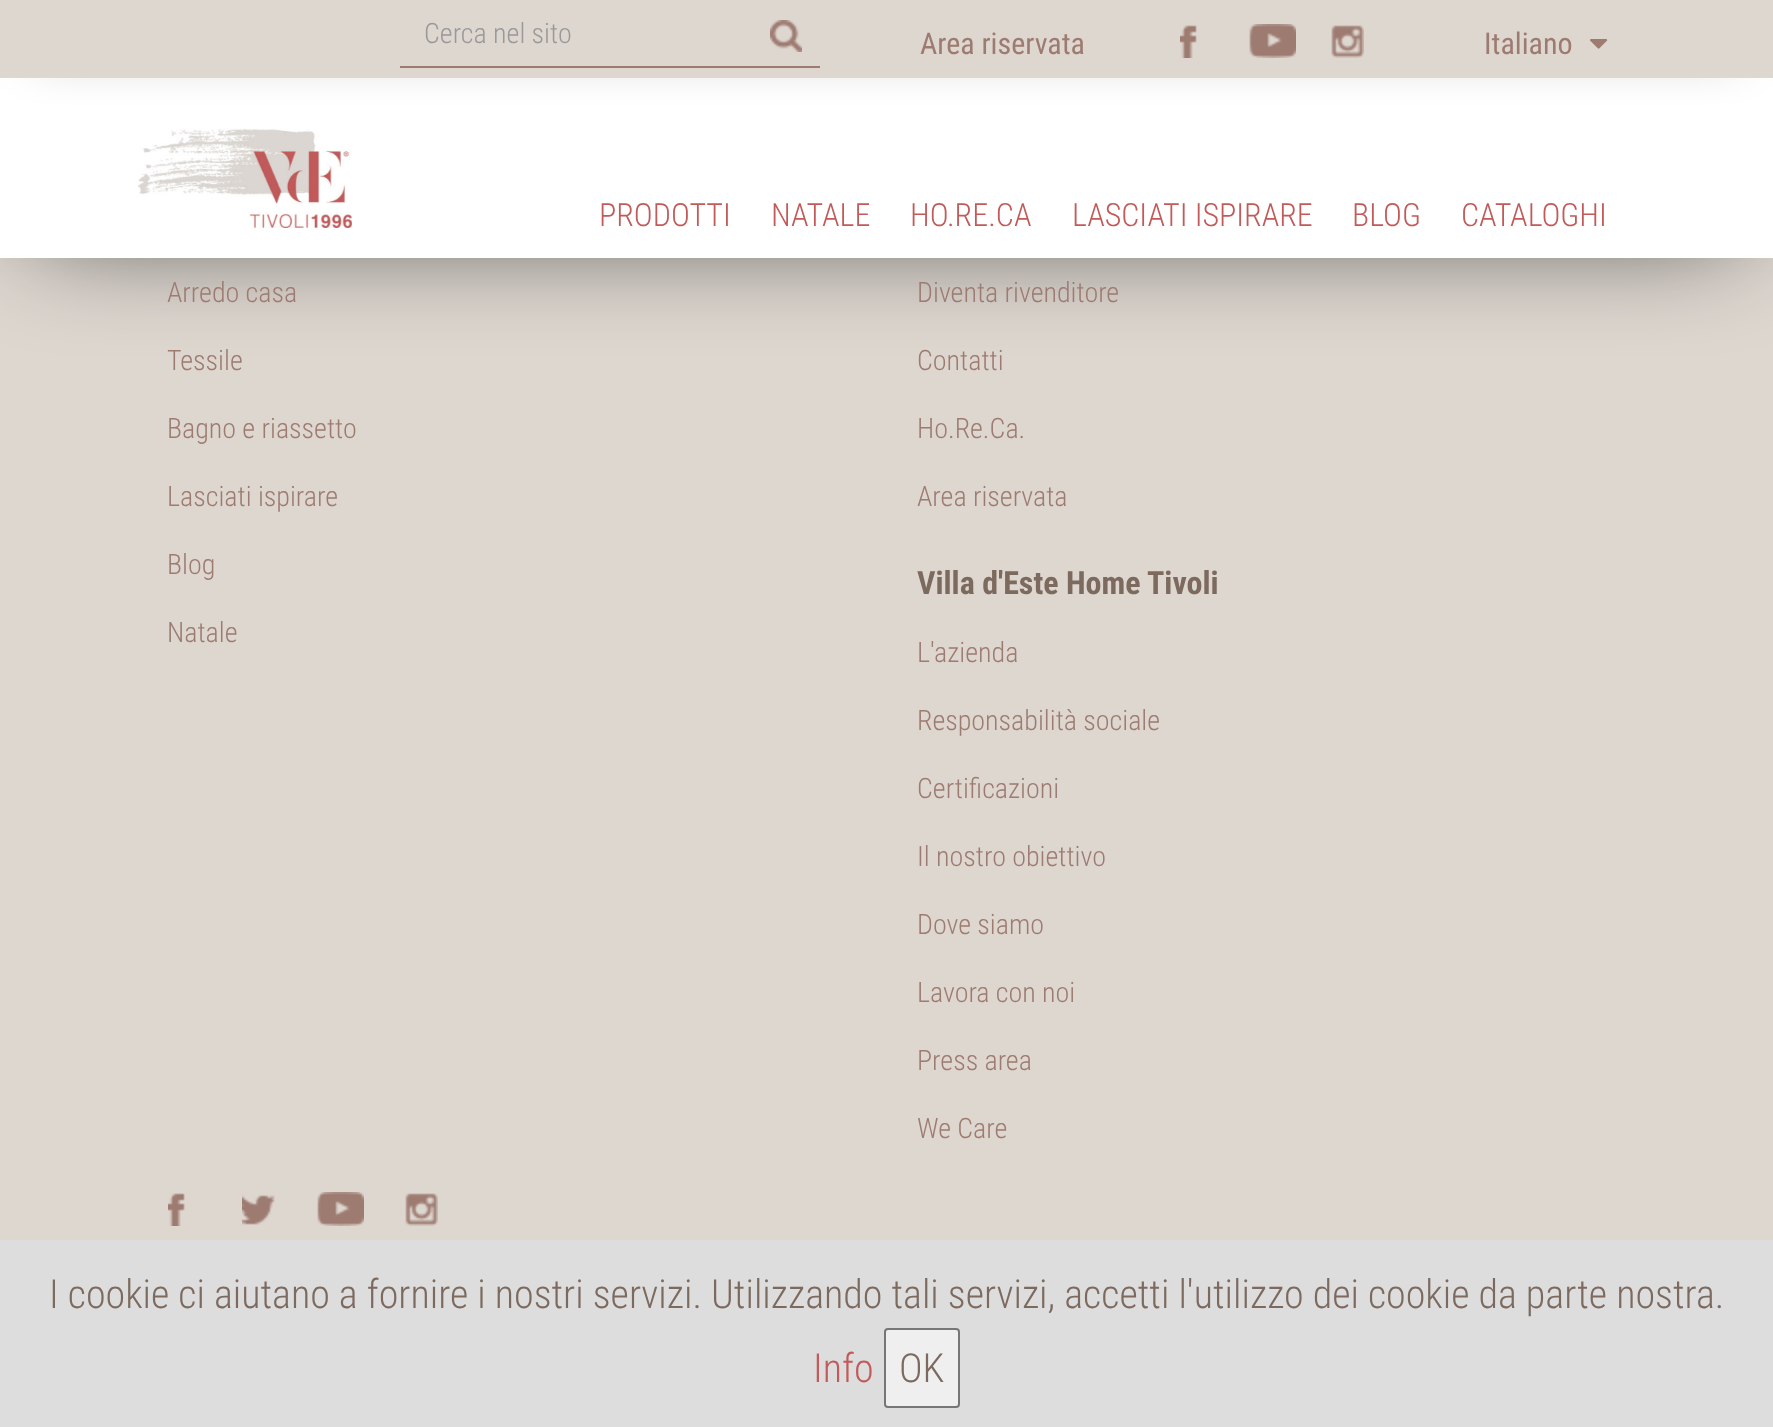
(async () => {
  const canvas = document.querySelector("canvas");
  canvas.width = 1773;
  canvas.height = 1427;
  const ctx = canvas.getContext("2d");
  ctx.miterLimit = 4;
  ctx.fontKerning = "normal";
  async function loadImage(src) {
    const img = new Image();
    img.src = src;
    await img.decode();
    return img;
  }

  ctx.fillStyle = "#ded7d0";
  ctx.fillRect(0, 0, 1773, 1427);
  ctx.fillStyle = "rgba(0, 0, 0, 0.75)";
  ctx.filter = "blur(54px)";
  ctx.beginPath();
  ctx.rect(34, 40, 1706, 190);
  ctx.fill();
  ctx.filter = "none";
  ctx.fillStyle = "#ffffff";
  ctx.fillRect(0, 78, 1773, 180);
  ctx.fillStyle = "rgba(0, 0, 0, 0.65)";
  ctx.filter = "blur(24px)";
  ctx.beginPath();
  ctx.rect(34, 40, 1706, 10);
  ctx.fill();
  ctx.filter = "none";
  ctx.fillStyle = "#ded7d0";
  ctx.fillRect(0, 0, 1773, 78);
  ctx.fillStyle = "#9d7b71";
  ctx.fillRect(400, 66, 420, 2);
  ctx.drawImage(await loadImage("img/1.png"), 770, 20, 32, 32);
  ctx.drawImage(await loadImage("img/2.png"), 1180, 25, 17, 33);
  ctx.drawImage(await loadImage("img/3.png"), 1249, 24, 47, 34);
  ctx.drawImage(await loadImage("img/4.png"), 1331, 25, 33, 33);
  ctx.drawImage(await loadImage("img/5.png"), 1590, 39, 18, 10);
  ctx.drawImage(await loadImage("img/6.png"), 138, 128, 214, 100);
  ctx.drawImage(await loadImage("img/2.png"), 168, 1193, 17, 33);
  ctx.drawImage(await loadImage("img/7.png"), 242, 1195, 33, 30);
  ctx.drawImage(await loadImage("img/3.png"), 317, 1192, 47, 34);
  ctx.drawImage(await loadImage("img/4.png"), 405, 1193, 33, 33);
  ctx.fillStyle = "#dddddd";
  ctx.fillRect(0, 1240, 1773, 187);
  ctx.fillStyle = "#efefef";
  ctx.beginPath();
  ctx.roundRect(885, 1329, 74, 78, 3);
  ctx.fill();
  ctx.strokeStyle = "#767676";
  ctx.lineWidth = 2;
  ctx.stroke();
  ctx.font = "300 28px Roboto Condensed";
  ctx.fillStyle = "#999999";
  ctx.fillText("Cerca nel sito", 424, 43);
  ctx.font = "30px Roboto Condensed";
  ctx.fillStyle = "#9d7b71";
  ctx.fillText("Area riservata", 920, 54);
  ctx.fillText("Italiano", 1484, 54);
  ctx.font = "300 32px Roboto Condensed";
  ctx.fillStyle = "#c15a59";
  for (const [text, x, y] of [
    ["PRODOTTI", 599, 226],
    ["NATALE", 771, 226],
    ["HO.RE.CA", 910, 226],
    ["LASCIATI ISPIRARE", 1072, 226],
    ["BLOG", 1352, 226],
    ["CATALOGHI", 1461, 226],
  ]) {
    ctx.fillText(text, x, y);
  }
  ctx.font = "300 28px Roboto Condensed";
  ctx.fillStyle = "#9d7b71";
  for (const [text, x, y] of [
    ["Arredo casa", 167, 302],
    ["Tessile", 167, 370],
    ["Bagno e riassetto", 167, 438],
    ["Lasciati ispirare", 167, 506],
    ["Blog", 167, 574],
    ["Natale", 167, 642],
    ["Diventa rivenditore", 917, 302],
    ["Contatti", 917, 370],
    ["Ho.Re.Ca.", 917, 438],
    ["Area riservata", 917, 506],
  ]) {
    ctx.fillText(text, x, y);
  }
  ctx.font = "bold 32px Roboto Condensed";
  ctx.fillStyle = "#7c6a5f";
  ctx.fillText("Villa d'Este Home Tivoli", 917, 594);
  ctx.font = "300 28px Roboto Condensed";
  ctx.fillStyle = "#9d7b71";
  for (const [text, x, y] of [
    ["L'azienda", 917, 662],
    ["Responsabilità sociale", 917, 730],
    ["Certificazioni", 917, 798],
    ["Il nostro obiettivo", 917, 866],
    ["Dove siamo", 917, 934],
    ["Lavora con noi", 917, 1002],
    ["Press area", 917, 1070],
    ["We Care", 917, 1138],
  ]) {
    ctx.fillText(text, x, y);
  }
  ctx.font = "300 40px Roboto Condensed";
  ctx.fillStyle = "#7c6a5f";
  ctx.fillText("I cookie ci aiutano a fornire i nostri servizi. Utilizzando tali servizi, accetti l'utilizzo dei cookie da parte nostra.", 49, 1308);
  ctx.fillStyle = "#c15a59";
  ctx.fillText("Info", 813, 1382);
  ctx.fillStyle = "#7c6a5f";
  ctx.fillText("OK", 899, 1382);
})();
